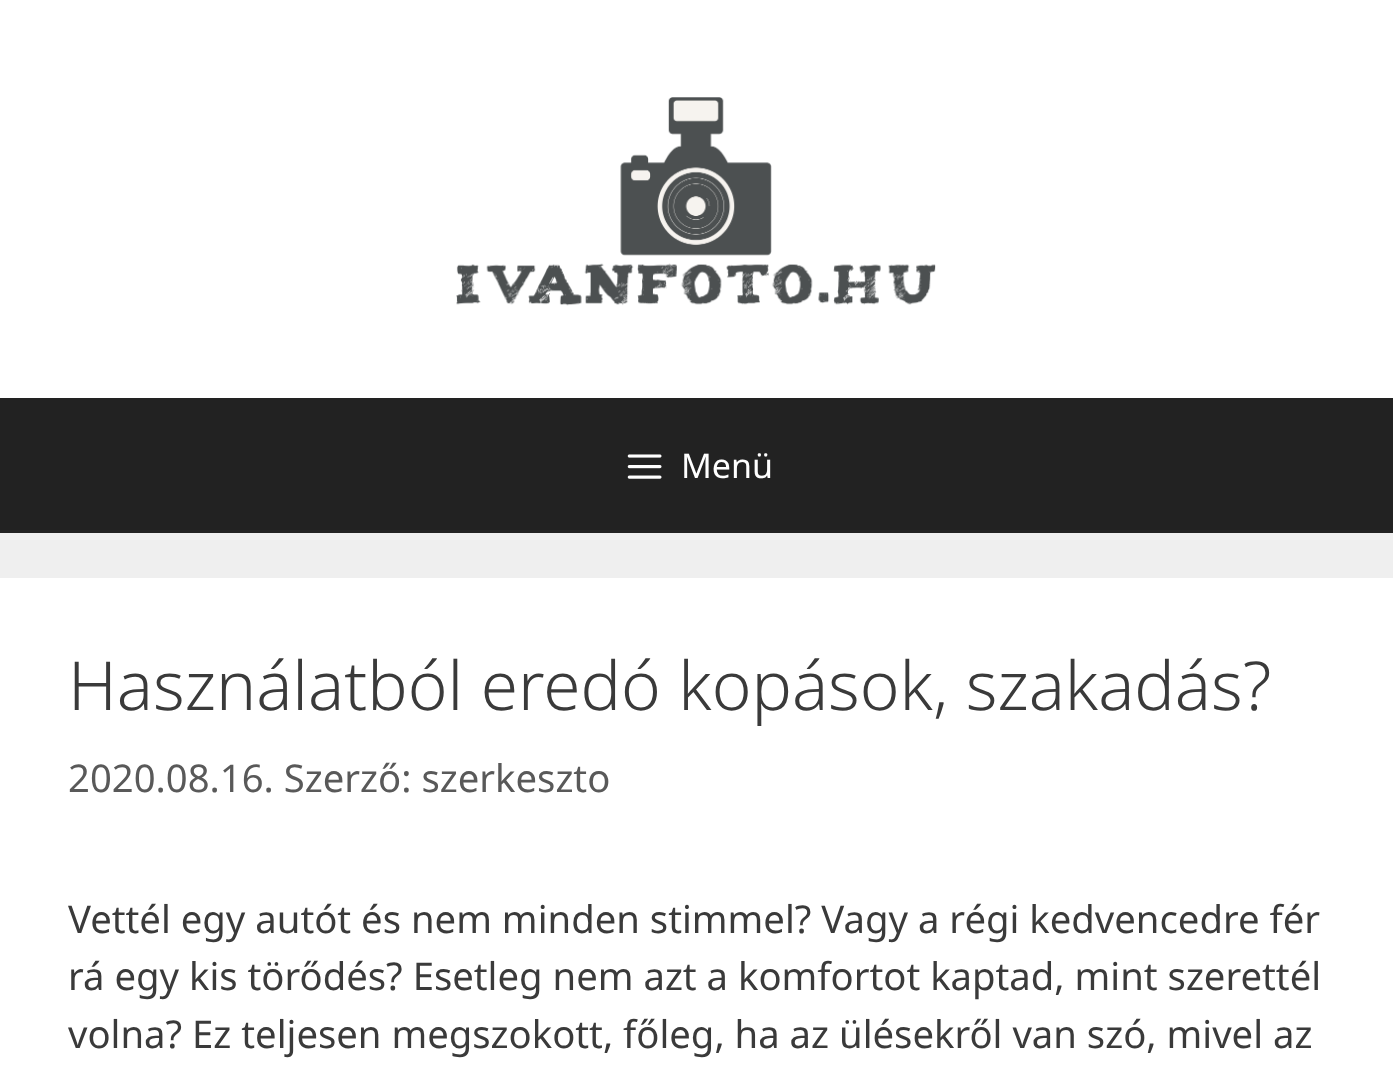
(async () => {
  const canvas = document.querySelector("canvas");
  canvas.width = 1393;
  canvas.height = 1071;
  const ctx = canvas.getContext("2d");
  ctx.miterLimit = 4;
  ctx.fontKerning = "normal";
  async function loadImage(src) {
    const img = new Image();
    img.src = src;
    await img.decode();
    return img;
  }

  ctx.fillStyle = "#efefef";
  ctx.fillRect(0, 0, 1393, 1071);
  ctx.fillStyle = "#ffffff";
  ctx.fillRect(0, 0, 1393, 398);
  ctx.drawImage(await loadImage("img/1.png"), 456, 97, 480, 209);
  ctx.fillStyle = "#222222";
  ctx.fillRect(0, 398, 1393, 135);
  ctx.drawImage(await loadImage("img/2.png"), 627, 454, 35, 25);
  ctx.fillStyle = "#ffffff";
  ctx.fillRect(0, 578, 1393, 493);
  ctx.font = "34px Noto Sans";
  ctx.fillText("Menü", 681, 478);
  ctx.font = "300 67.5px Noto Sans";
  ctx.fillStyle = "#3a3a3a";
  ctx.fillText("Használatból eredó kopások, szakadás?", 68, 710);
  ctx.font = "38.25px Noto Sans";
  ctx.fillStyle = "#595959";
  ctx.fillText("2020.08.16. Szerző: szerkeszto", 68, 792);
  ctx.fillStyle = "#3a3a3a";
  for (const [text, x, y] of [
    ["Vettél egy autót és nem minden stimmel? Vagy a régi kedvencedre fér", 68, 933],
    ["rá egy kis törődés? Esetleg nem azt a komfortot kaptad, mint szerettél", 68, 990],
    ["volna? Ez teljesen megszokott, főleg, ha az ülésekről van szó, mivel az", 68, 1048],
  ]) {
    ctx.fillText(text, x, y);
  }
})();
